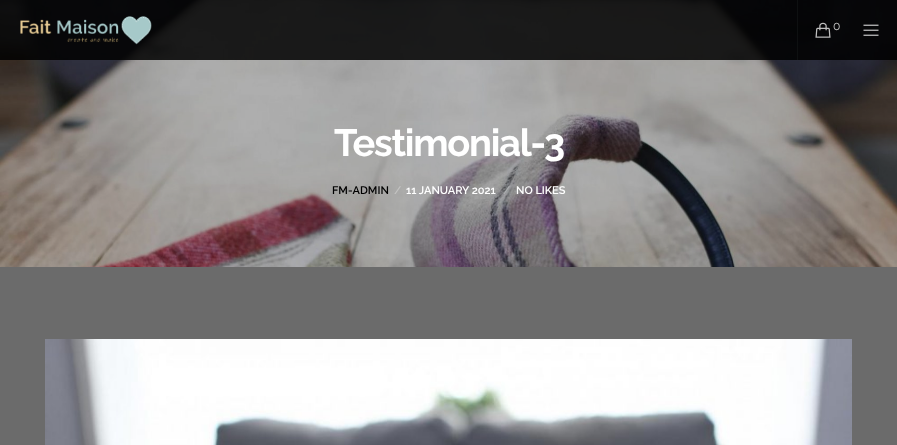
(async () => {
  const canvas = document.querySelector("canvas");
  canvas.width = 897;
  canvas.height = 445;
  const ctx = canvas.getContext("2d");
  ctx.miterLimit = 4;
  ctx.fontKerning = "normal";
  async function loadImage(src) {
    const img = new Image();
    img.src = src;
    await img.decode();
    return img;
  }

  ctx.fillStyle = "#ffffff";
  ctx.fillRect(0, 0, 897, 445);
  ctx.drawImage(await loadImage("img/4.png"), 0, 0, 897, 267);
  ctx.fillStyle = "rgba(0, 0, 0, 0.85)";
  ctx.fillRect(0, 0, 897, 60);
  ctx.drawImage(await loadImage("img/1.png"), 20, 16, 132, 29);
  ctx.fillStyle = "#0e1011";
  ctx.fillRect(797, 0, 1, 60);
  ctx.drawImage(await loadImage("img/2.png"), 815, 22, 16, 16);
  ctx.drawImage(await loadImage("img/3.png"), 863, 24, 16, 12);
  ctx.fillStyle = "#6b6b6b";
  ctx.fillRect(0, 267, 897, 178);
  ctx.drawImage(await loadImage("img/5.png"), 45, 339, 807, 106);
  ctx.font = "12px Raleway";
  ctx.fillStyle = "#c3c3c2";
  ctx.fillText("0", 833, 30);
  ctx.letterSpacing = "-1.25px";
  ctx.font = "bold 38px Raleway";
  ctx.fillStyle = "#ffffff";
  ctx.fillText("Testimonial-3", 334, 156);
  ctx.letterSpacing = "0px";
  ctx.font = "600 11px Raleway";
  ctx.fillStyle = "#000000";
  ctx.fillText("FM-ADMIN", 332, 194);
  ctx.fillStyle = "#c3c3c2";
  ctx.fillText("/", 394, 194);
  ctx.fillStyle = "#ffffff";
  ctx.fillText("11 JANUARY 2021", 406, 194);
  ctx.fillStyle = "#adafb1";
  ctx.fillText("/", 503, 194);
  ctx.fillStyle = "#ffffff";
  ctx.fillText("NO LIKES", 516, 194);
})();
